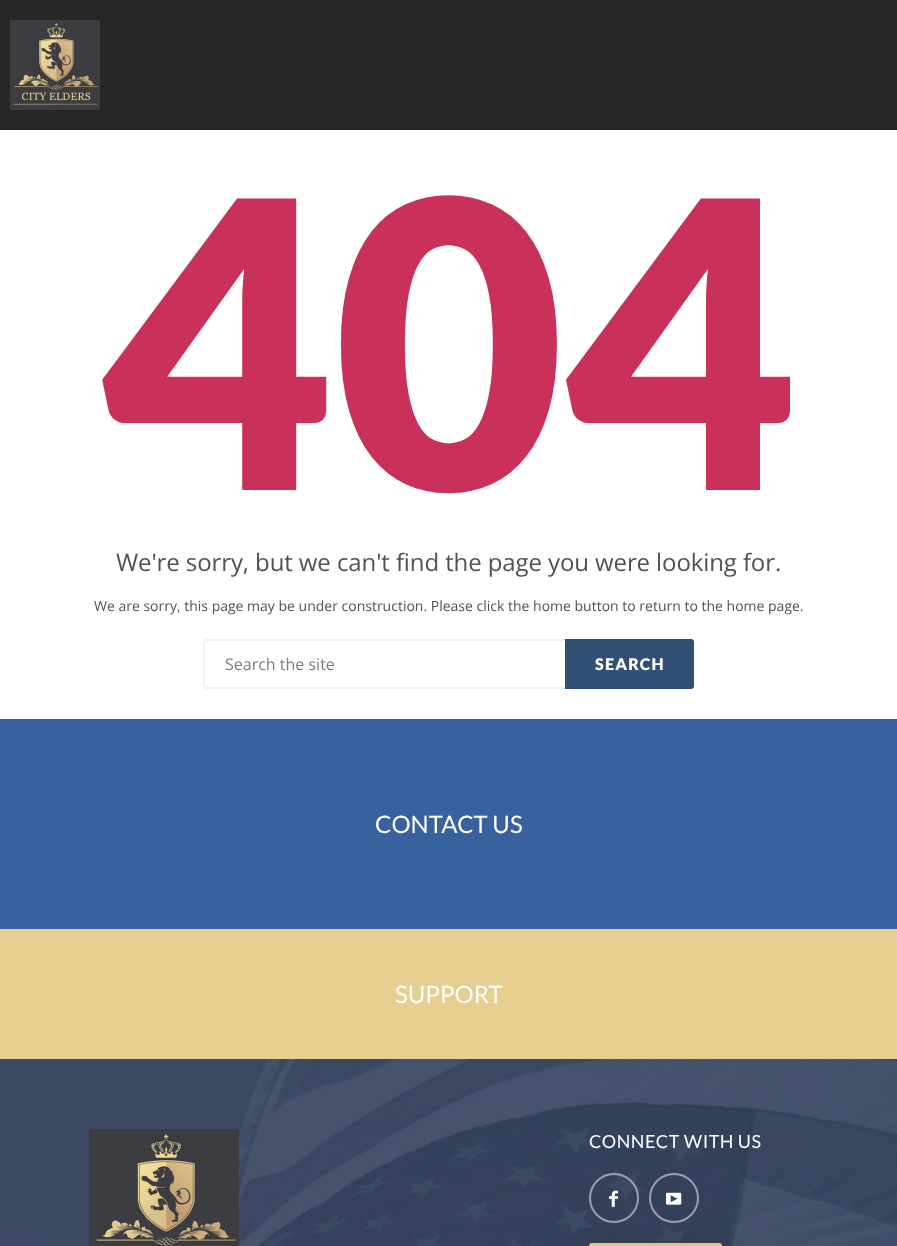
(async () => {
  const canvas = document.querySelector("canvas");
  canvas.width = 897;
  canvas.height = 1246;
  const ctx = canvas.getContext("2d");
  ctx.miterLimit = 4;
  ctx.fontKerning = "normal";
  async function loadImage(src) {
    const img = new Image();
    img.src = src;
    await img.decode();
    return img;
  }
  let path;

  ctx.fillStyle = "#ffffff";
  ctx.fillRect(0, 0, 897, 1246);
  ctx.fillStyle = "#262626";
  ctx.fillRect(0, 0, 897, 130);
  ctx.drawImage(await loadImage("img/1.png"), 10, 20, 90, 90);
  ctx.fillStyle = "#f1f1f1";
  path = new Path2D("M206 639H565V689H206C204 689 203 688 203 686V642C203 640 204 639 206 639ZM206 641H565V687H206C205 687 205 687 205 686V642C205 641 205 641 206 641Z");
  ctx.fill(path, "evenodd");
  ctx.fillStyle = "#314e75";
  ctx.beginPath();
  ctx.roundRect(565, 639, 129, 50, [0, 3, 3, 0]);
  ctx.fill();
  ctx.fillStyle = "#37629d";
  ctx.fillRect(0, 719, 897, 210);
  ctx.fillStyle = "#e7cf92";
  ctx.fillRect(0, 929, 897, 130);
  ctx.drawImage(await loadImage("img/2.png"), 0, 1059, 897, 187);
  ctx.drawImage(await loadImage("img/3.png"), 89, 1129, 150, 117);
  ctx.beginPath();
  ctx.arc(614, 1198, 24, 0, Math.PI * 2);
  ctx.strokeStyle = "#9aa0ad";
  ctx.lineWidth = 2;
  ctx.stroke();
  ctx.drawImage(await loadImage("img/4.png"), 609, 1190, 9, 17);
  ctx.beginPath();
  ctx.arc(674, 1198, 24, 0, Math.PI * 2);
  ctx.stroke();
  ctx.drawImage(await loadImage("img/5.png"), 666, 1192, 16, 13);
  ctx.fillStyle = "#262626";
  ctx.filter = "blur(12.5px)";
  ctx.beginPath();
  ctx.roundRect(589, 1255, 133, 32, 3);
  ctx.fill();
  ctx.filter = "none";
  ctx.fillStyle = "#e6c56f";
  ctx.beginPath();
  ctx.roundRect(589, 1243, 133, 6, 3);
  ctx.fill();
  ctx.letterSpacing = "-0.1px";
  ctx.font = "900 400px Lato";
  ctx.fillStyle = "#c9315b";
  ctx.fillText("404", 101, 490);
  ctx.font = "24px Open Sans";
  ctx.fillStyle = "#525252";
  ctx.fillText("We're sorry, but we can't find the page you were looking for.", 116, 571);
  ctx.letterSpacing = "0px";
  ctx.font = "14px Open Sans";
  ctx.fillText("We are sorry, this page may be under construction. Please click the home button to return to the home page.", 94, 611);
  ctx.font = "16px Open Sans";
  ctx.fillStyle = "#7d7d7d";
  ctx.fillText("Search the site", 225, 670);
  ctx.letterSpacing = "1.25px";
  ctx.font = "900 16px Lato";
  ctx.fillStyle = "#ffffff";
  ctx.fillText("SEARCH", 595, 670);
  ctx.letterSpacing = "0px";
  ctx.font = "24px Lato";
  ctx.fillText("CONTACT US", 375, 833);
  ctx.fillText("SUPPORT", 395, 1003);
  ctx.letterSpacing = "0.5px";
  ctx.font = "18px Lato";
  ctx.fillText("CONNECT WITH US", 589, 1148);
})();
